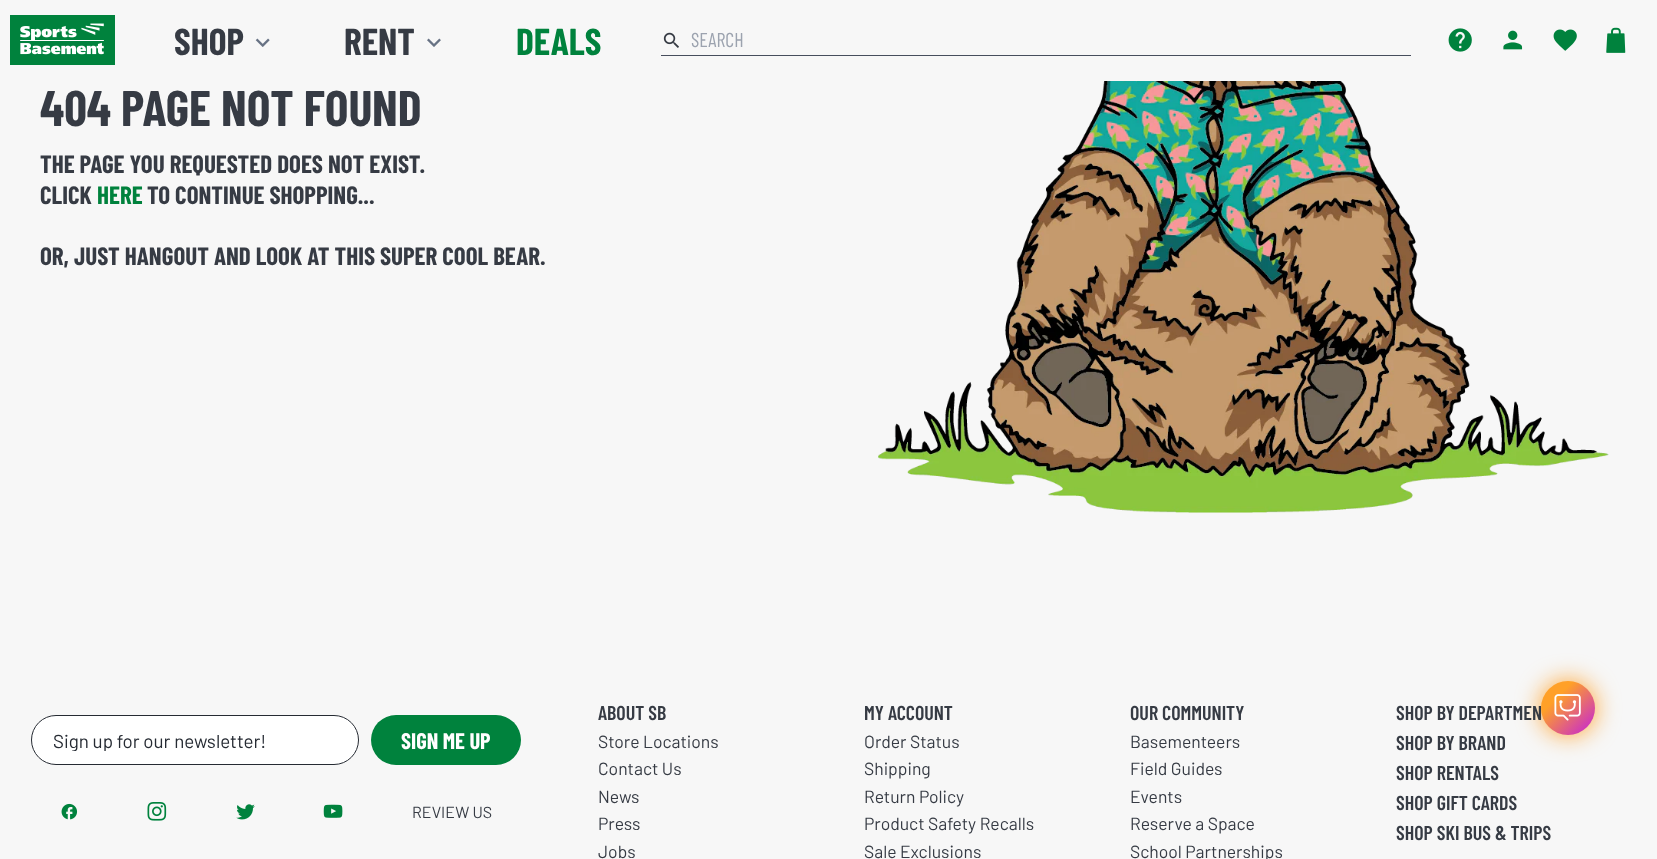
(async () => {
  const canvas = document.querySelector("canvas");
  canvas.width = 1657;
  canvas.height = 859;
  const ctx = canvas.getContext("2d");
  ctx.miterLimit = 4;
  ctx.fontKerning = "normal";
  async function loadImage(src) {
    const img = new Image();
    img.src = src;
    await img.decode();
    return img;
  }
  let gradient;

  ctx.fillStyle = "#f7f7f7";
  ctx.fillRect(0, 0, 1657, 859);
  ctx.drawImage(await loadImage("img/1.png"), 10, 15, 105, 50);
  ctx.drawImage(await loadImage("img/2.png"), 255, 38, 15, 9);
  ctx.drawImage(await loadImage("img/3.png"), 427, 38, 14, 9);
  ctx.drawImage(await loadImage("img/4.png"), 663, 32, 16, 16);
  ctx.fillStyle = "#474e5d";
  ctx.fillRect(661, 55, 750, 1);
  ctx.drawImage(await loadImage("img/5.png"), 1448, 28, 24, 24);
  ctx.drawImage(await loadImage("img/6.png"), 1503, 30, 20, 20);
  ctx.drawImage(await loadImage("img/7.png"), 1553, 29, 24, 22);
  ctx.drawImage(await loadImage("img/8.png"), 1606, 27, 20, 26);
  ctx.drawImage(await loadImage("img/9.png"), 878, 81, 731, 432);
  ctx.fillStyle = "#ffffff";
  ctx.beginPath();
  ctx.roundRect(31.5, 715.5, 327, 49, 24.5);
  ctx.fill();
  ctx.strokeStyle = "#262b33";
  ctx.stroke();
  ctx.fillStyle = "#00823d";
  ctx.beginPath();
  ctx.roundRect(371, 715, 150, 50, 25);
  ctx.fill();
  ctx.drawImage(await loadImage("img/10.png"), 61, 803, 17, 17);
  ctx.drawImage(await loadImage("img/11.png"), 147, 802, 20, 19);
  ctx.drawImage(await loadImage("img/12.png"), 236, 804, 19, 16);
  ctx.drawImage(await loadImage("img/13.png"), 323, 804, 20, 14);
  ctx.fillStyle = "#ffa028";
  ctx.filter = "blur(12.5px)";
  ctx.beginPath();
  ctx.roundRect(1541, 681, 54, 54, 27);
  ctx.fill();
  ctx.filter = "none";
  ctx.font = "bold 37.5px Barlow Condensed";
  ctx.fillStyle = "#363b44";
  ctx.fillText("SHOP", 174, 55);
  ctx.fillText("RENT", 344, 55);
  ctx.fillStyle = "#00823d";
  ctx.fillText("DEALS", 516, 55);
  ctx.font = "20px Barlow Condensed";
  ctx.fillStyle = "#9ca3af";
  ctx.fillText("SEARCH", 691, 47);
  ctx.font = "bold 50px Barlow Condensed";
  ctx.fillStyle = "#363b44";
  ctx.fillText("404 PAGE NOT FOUND", 40, 126);
  ctx.font = "bold 25px Barlow Condensed";
  ctx.fillText("THE PAGE YOU REQUESTED DOES NOT EXIST.", 40, 173);
  ctx.fillText("CLICK", 40, 204);
  ctx.fillStyle = "#00823d";
  ctx.fillText("HERE", 97, 204);
  ctx.fillStyle = "#363b44";
  ctx.fillText("TO CONTINUE SHOPPING...", 147, 204);
  ctx.fillText("OR, JUST HANGOUT AND LOOK AT THIS SUPER COOL BEAR.", 40, 265);
  ctx.save();
  ctx.beginPath();
  ctx.rect(53, 729, 305, 22);
  ctx.clip();
  ctx.font = "18.75px Barlow";
  ctx.fillStyle = "#262b33";
  ctx.fillText("Sign up for our newsletter!", 53, 748);
  ctx.restore();
  ctx.font = "bold 22.5px Barlow Condensed";
  ctx.fillStyle = "#ffffff";
  ctx.fillText("  SIGN ME UP ", 392, 749);
  ctx.font = "16px Barlow";
  ctx.fillStyle = "#363b44";
  ctx.fillText("REVIEW US", 412, 818);
  ctx.font = "600 20px Barlow Condensed";
  ctx.fillText("ABOUT SB", 598, 720);
  ctx.font = "17.5px Barlow";
  for (const [text, x, y] of [
    ["Store Locations", 598, 748],
    ["Contact Us", 598, 775],
    ["News", 598, 803],
    ["Press", 598, 830],
    ["Jobs", 598, 858],
  ]) {
    ctx.fillText(text, x, y);
  }
  ctx.font = "600 20px Barlow Condensed";
  ctx.fillText("MY ACCOUNT", 864, 720);
  ctx.font = "17.5px Barlow";
  for (const [text, x, y] of [
    ["Order Status", 864, 748],
    ["Shipping", 864, 775],
    ["Return Policy", 864, 803],
    ["Product Safety Recalls", 864, 830],
    ["Sale Exclusions", 864, 858],
  ]) {
    ctx.fillText(text, x, y);
  }
  ctx.font = "600 20px Barlow Condensed";
  ctx.fillText("OUR COMMUNITY", 1130, 720);
  ctx.font = "17.5px Barlow";
  for (const [text, x, y] of [
    ["Basementeers", 1130, 748],
    ["Field Guides", 1130, 775],
    ["Events", 1130, 803],
    ["Reserve a Space", 1130, 830],
    ["School Partnerships", 1130, 858],
  ]) {
    ctx.fillText(text, x, y);
  }
  ctx.font = "600 20px Barlow Condensed";
  for (const [text, x, y] of [
    ["SHOP BY DEPARTMEN", 1396, 720],
    ["SHOP BY BRAND", 1396, 750],
    ["SHOP RENTALS", 1396, 780],
    ["SHOP GIFT CARDS", 1396, 810],
    ["SHOP SKI BUS & TRIPS", 1396, 840],
  ]) {
    ctx.fillText(text, x, y);
  }
  gradient = ctx.createLinearGradient(1541, 681, 1595, 735);
  gradient.addColorStop(0.3, "#ffa028");
  gradient.addColorStop(1, "#c21ddf");
  ctx.fillStyle = gradient;
  ctx.beginPath();
  ctx.arc(1568, 708, 27, 0, Math.PI * 2);
  ctx.fill();
  ctx.drawImage(await loadImage("img/14.png"), 1554, 694, 27, 27);
})();
